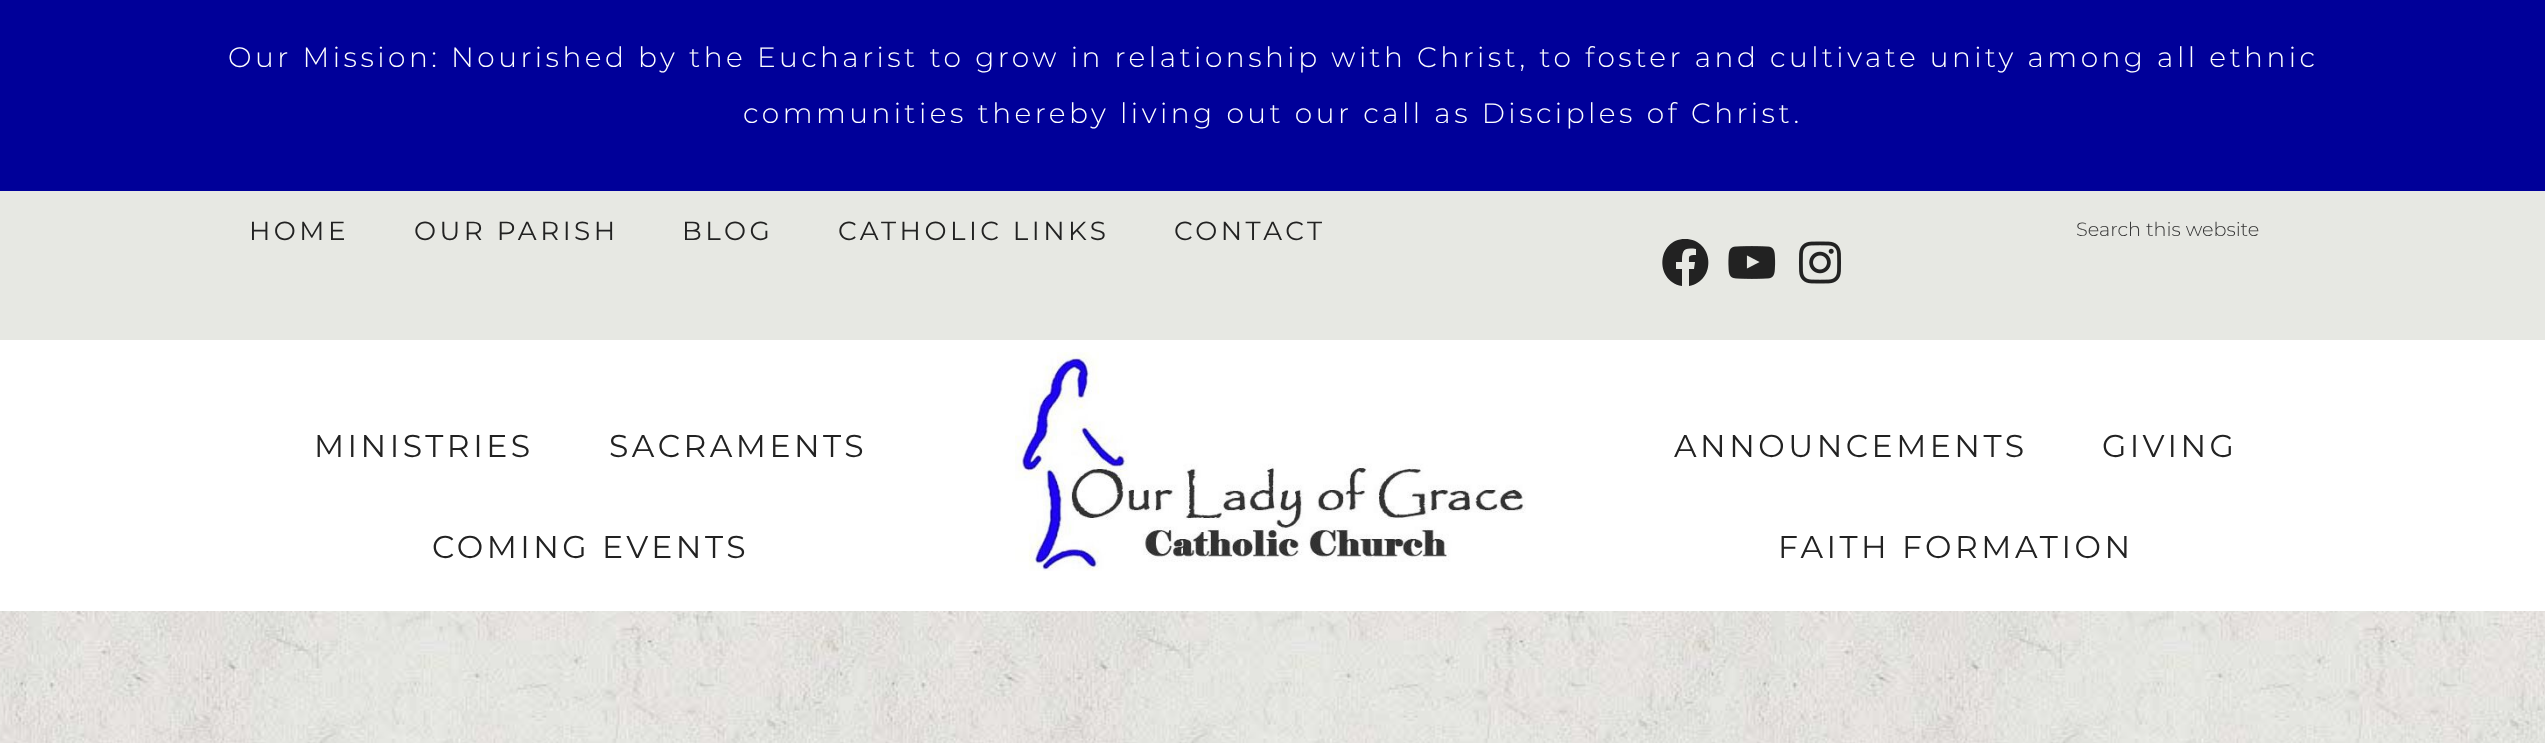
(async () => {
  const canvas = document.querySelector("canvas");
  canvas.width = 2545;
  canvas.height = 743;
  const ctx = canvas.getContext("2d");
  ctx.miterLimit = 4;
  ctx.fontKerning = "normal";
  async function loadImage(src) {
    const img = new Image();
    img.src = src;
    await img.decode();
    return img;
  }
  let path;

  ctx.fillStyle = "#ffffff";
  ctx.fillRect(0, 0, 2545, 743);
  ctx.drawImage(await loadImage("img/1.png"), 0, 611, 2545, 132);
  ctx.fillStyle = "#000099";
  ctx.fillRect(0, 0, 2545, 191);
  ctx.fillStyle = "#e7e8e3";
  ctx.fillRect(0, 191, 2545, 149);
  ctx.fillStyle = "#222222";
  path = new Path2D("M1685 239C1657 239 1654 281 1682 286V269H1676V262H1682C1682 251 1683 247 1696 249V255C1688 255 1689 256 1689 262H1695L1694 269H1689V286C1717 281 1714 239 1685 239Z");
  ctx.fill(path);
  ctx.drawImage(await loadImage("img/2.png"), 1728, 246, 48, 33);
  ctx.drawImage(await loadImage("img/3.png"), 1799, 241, 42, 43);
  ctx.drawImage(await loadImage("img/4.png"), 1015, 352, 511, 219);
  ctx.letterSpacing = "3.5px";
  ctx.font = "300 28px Montserrat";
  ctx.fillStyle = "#ffffff";
  ctx.fillText("Our Mission: Nourished by the Eucharist to grow in relationship with Christ, to foster and cultivate unity among all ethnic", 228, 67);
  ctx.fillText("communities thereby living out our call as Disciples of Christ.", 743, 123);
  ctx.font = "26.25px Montserrat";
  ctx.fillStyle = "#222222";
  for (const [text, x, y] of [
    ["HOME", 249, 240],
    ["OUR PARISH", 414, 240],
    ["BLOG", 682, 240],
    ["CATHOLIC LINKS", 838, 240],
    ["CONTACT", 1174, 240],
  ]) {
    ctx.fillText(text, x, y);
  }
  ctx.letterSpacing = "0px";
  ctx.font = "300 19.25px Montserrat";
  ctx.fillStyle = "#333333";
  ctx.fillText("Search this website", 2076, 236);
  ctx.letterSpacing = "3.5px";
  ctx.font = "31.5px Montserrat";
  ctx.fillStyle = "#222222";
  for (const [text, x, y] of [
    ["MINISTRIES", 314, 457],
    ["SACRAMENTS", 609, 457],
    ["COMING EVENTS", 432, 558],
    ["ANNOUNCEMENTS", 1674, 457],
    ["GIVING", 2102, 457],
    ["FAITH FORMATION", 1778, 558],
  ]) {
    ctx.fillText(text, x, y);
  }
})();
